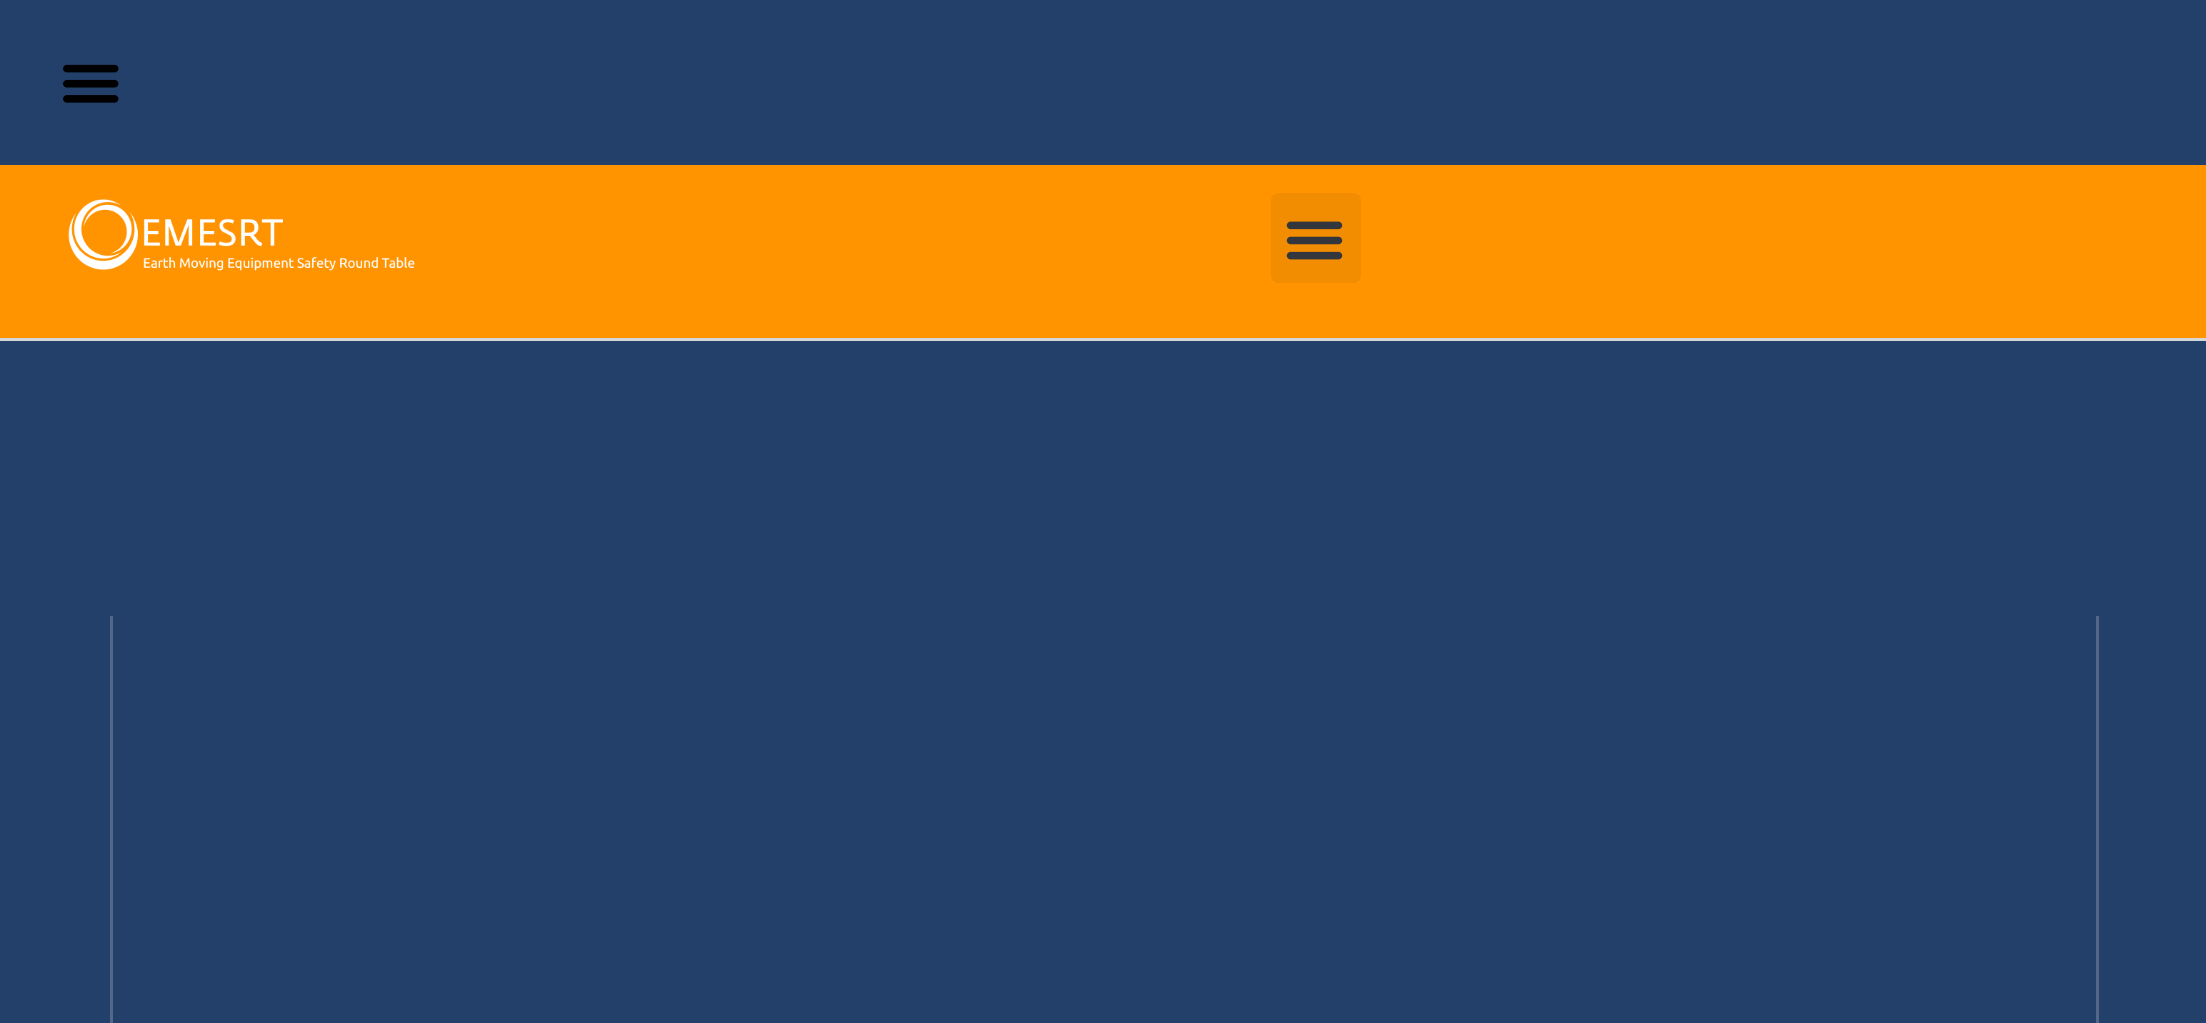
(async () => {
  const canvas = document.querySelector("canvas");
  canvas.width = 2206;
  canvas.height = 1023;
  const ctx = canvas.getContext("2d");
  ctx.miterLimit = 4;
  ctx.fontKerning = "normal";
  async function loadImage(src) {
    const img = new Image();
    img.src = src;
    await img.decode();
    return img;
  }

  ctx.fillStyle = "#23406a";
  ctx.fillRect(0, 0, 2206, 1023);
  ctx.drawImage(await loadImage("img/1.png"), 63, 64, 56, 39);
  ctx.fillStyle = "#d6d6d6";
  ctx.fillRect(0, 338, 2206, 3);
  ctx.fillStyle = "#ff9300";
  ctx.fillRect(0, 165, 2206, 173);
  ctx.drawImage(await loadImage("img/2.png"), 68, 199, 347, 72);
  ctx.fillStyle = "#f28c00";
  ctx.beginPath();
  ctx.roundRect(1271, 193, 90, 90, 8);
  ctx.fill();
  ctx.drawImage(await loadImage("img/3.png"), 1286, 221, 57, 39);
  ctx.fillStyle = "#536888";
  ctx.fillRect(2096, 616, 3, 407);
  ctx.fillRect(110, 616, 3, 407);
})();
